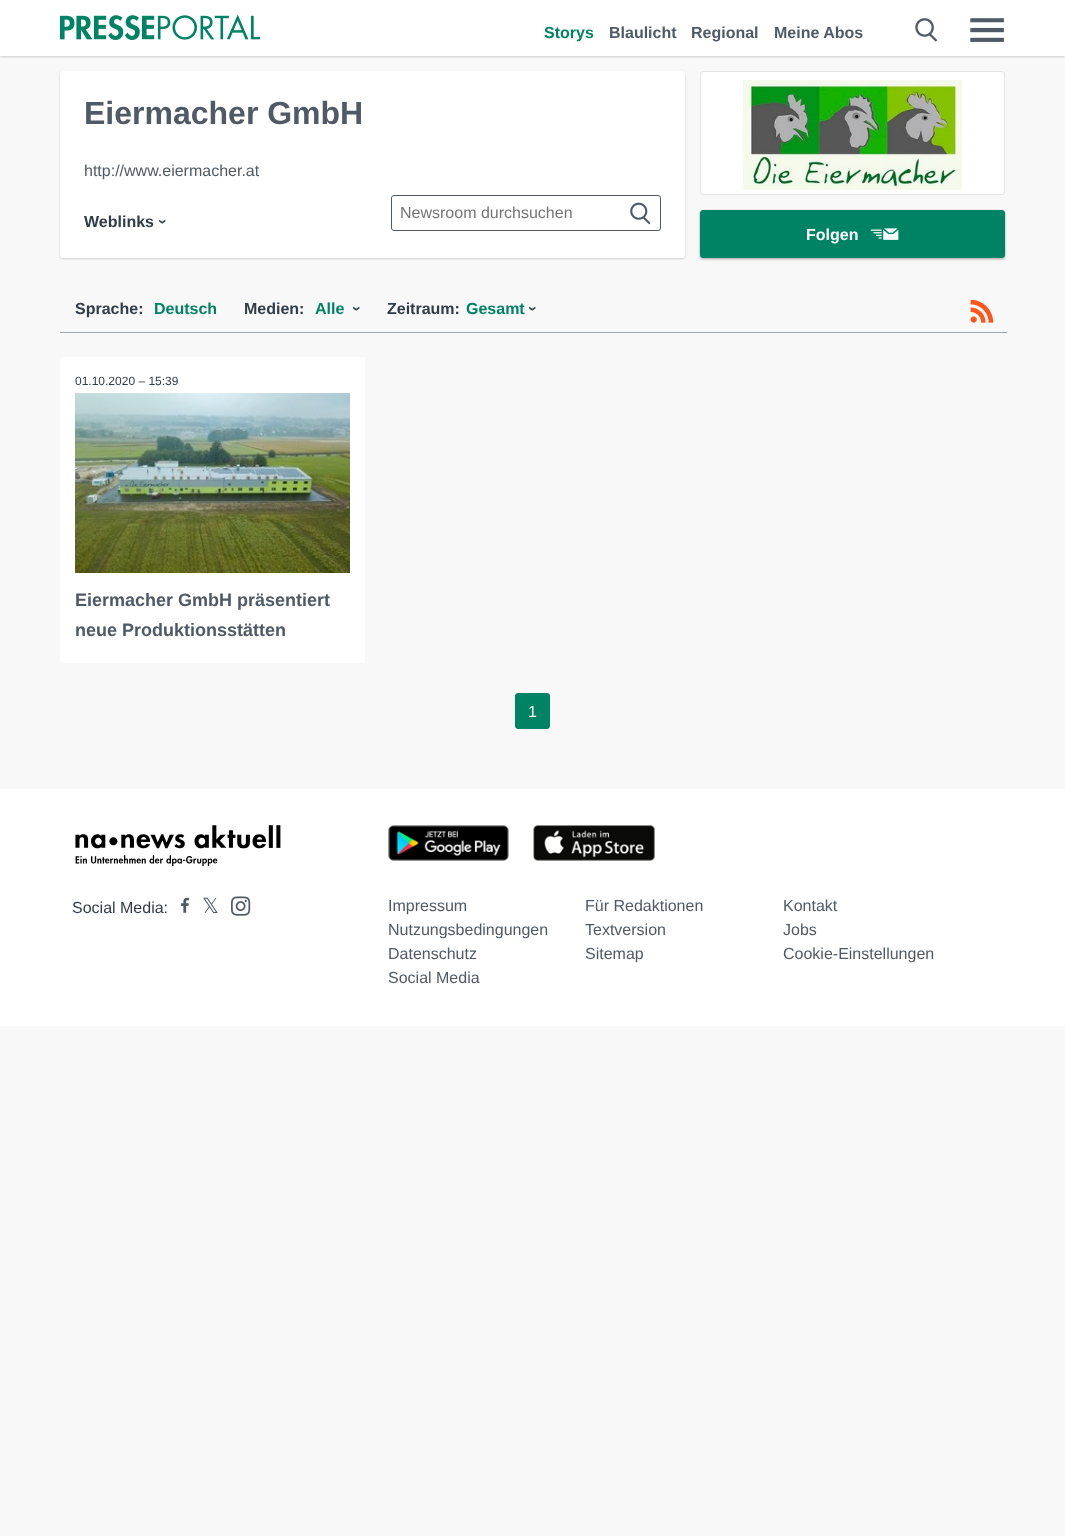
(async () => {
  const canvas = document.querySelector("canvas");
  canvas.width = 1065;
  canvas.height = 1536;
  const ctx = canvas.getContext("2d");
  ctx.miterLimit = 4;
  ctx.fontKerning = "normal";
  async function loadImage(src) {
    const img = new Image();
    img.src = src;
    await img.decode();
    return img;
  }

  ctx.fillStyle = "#f8f8f8";
  ctx.fillRect(0, 0, 1065, 1536);
  ctx.fillStyle = "rgba(79, 90, 102, 0.16)";
  ctx.filter = "blur(1px)";
  ctx.beginPath();
  ctx.rect(0, 1, 1065, 56);
  ctx.fill();
  ctx.filter = "none";
  ctx.fillStyle = "rgba(79, 90, 102, 0.1)";
  ctx.filter = "blur(1px)";
  ctx.beginPath();
  ctx.rect(0, 1, 1065, 56);
  ctx.fill();
  ctx.filter = "none";
  ctx.fillStyle = "#ffffff";
  ctx.fillRect(0, 0, 1065, 56);
  ctx.drawImage(await loadImage("img/1.png"), 60, 14, 200, 26);
  ctx.drawImage(await loadImage("img/2.png"), 915, 18, 23, 24);
  ctx.drawImage(await loadImage("img/3.png"), 970, 18, 34, 24);
  ctx.fillStyle = "rgba(79, 90, 102, 0.16)";
  ctx.filter = "blur(1px)";
  ctx.beginPath();
  ctx.roundRect(60, 72, 625, 187, 3);
  ctx.fill();
  ctx.filter = "none";
  ctx.fillStyle = "rgba(79, 90, 102, 0.1)";
  ctx.filter = "blur(1px)";
  ctx.beginPath();
  ctx.roundRect(60, 72, 625, 187, 3);
  ctx.fill();
  ctx.filter = "none";
  ctx.fillStyle = "#ffffff";
  ctx.beginPath();
  ctx.roundRect(60, 71, 625, 187, 3);
  ctx.fill();
  ctx.beginPath();
  ctx.roundRect(391.5, 195.5, 269, 35, 2.5);
  ctx.strokeStyle = "#4f5a66";
  ctx.stroke();
  ctx.drawImage(await loadImage("img/4.png"), 630, 202, 21, 23);
  ctx.beginPath();
  ctx.roundRect(700.5, 71.5, 304, 123, 2.5);
  ctx.fill();
  ctx.strokeStyle = "#e2e6e9";
  ctx.stroke();
  ctx.drawImage(await loadImage("img/5.png"), 743, 80, 219, 110);
  ctx.fillStyle = "rgba(0, 0, 0, 0.24)";
  ctx.filter = "blur(1px)";
  ctx.beginPath();
  ctx.roundRect(700, 211, 305, 48, 3);
  ctx.fill();
  ctx.filter = "none";
  ctx.fillStyle = "rgba(0, 0, 0, 0.12)";
  ctx.filter = "blur(1.5px)";
  ctx.beginPath();
  ctx.roundRect(700, 211, 305, 48, 3);
  ctx.fill();
  ctx.filter = "none";
  ctx.fillStyle = "#008264";
  ctx.beginPath();
  ctx.roundRect(700.5, 210.5, 304, 47, 2.5);
  ctx.fill();
  ctx.strokeStyle = "#008264";
  ctx.stroke();
  ctx.drawImage(await loadImage("img/6.png"), 870, 228, 29, 12);
  ctx.fillStyle = "#99a9b2";
  ctx.fillRect(60, 332, 947, 1);
  ctx.drawImage(await loadImage("img/7.png"), 970, 299, 24, 24);
  ctx.fillStyle = "#ffffff";
  ctx.beginPath();
  ctx.roundRect(60, 357, 305, 306, 3);
  ctx.fill();
  ctx.drawImage(await loadImage("img/8.png"), 75, 393, 275, 180);
  ctx.fillStyle = "#008264";
  ctx.beginPath();
  ctx.roundRect(515.5, 693.5, 34, 35, 2.5);
  ctx.fill();
  ctx.stroke();
  ctx.fillStyle = "#ffffff";
  ctx.fillRect(0, 789, 1065, 237);
  ctx.drawImage(await loadImage("img/9.png"), 75, 825, 206, 41);
  ctx.drawImage(await loadImage("img/10.png"), 388, 825, 121, 36);
  ctx.drawImage(await loadImage("img/11.png"), 533, 825, 122, 36);
  ctx.drawImage(await loadImage("img/12.png"), 181, 897, 8, 16);
  ctx.drawImage(await loadImage("img/13.png"), 231, 896, 20, 20);
  ctx.font = "bold 16px Liberation Sans";
  ctx.fillStyle = "#008264";
  ctx.fillText("Storys", 544, 38);
  ctx.fillStyle = "#4f5a66";
  for (const [text, x, y] of [
    ["Blaulicht", 609, 38],
    ["Regional", 691, 38],
    ["Meine Abos", 774, 38],
  ]) {
    ctx.fillText(text, x, y);
  }
  ctx.font = "bold 32px Liberation Sans";
  ctx.fillText("Eiermacher GmbH", 84, 124);
  ctx.font = "16px Liberation Sans";
  ctx.fillText("http://www.eiermacher.at", 84, 176);
  ctx.font = "bold 16px Liberation Sans";
  ctx.fillStyle = "#303c49";
  ctx.fillText("Weblinks", 84, 227);
  ctx.save();
  ctx.translate(158, 219);
  ctx.rotate(90 * Math.PI / 180);
  ctx.fillText("›", 0, 0);
  ctx.restore();
  ctx.font = "16px Liberation Sans";
  ctx.fillStyle = "#757575";
  ctx.fillText("Newsroom durchsuchen", 400, 218);
  ctx.font = "bold 16px Liberation Sans";
  ctx.fillStyle = "#ffffff";
  ctx.fillText("Folgen", 806, 240);
  ctx.fillStyle = "#303c49";
  ctx.fillText("Sprache:", 75, 314);
  ctx.fillStyle = "#008264";
  ctx.fillText("Deutsch", 154, 314);
  ctx.fillStyle = "#303c49";
  ctx.fillText("Medien:", 244, 314);
  ctx.fillStyle = "#008264";
  ctx.fillText("Alle", 315, 314);
  ctx.fillStyle = "#303c49";
  ctx.save();
  ctx.translate(352, 306);
  ctx.rotate(90 * Math.PI / 180);
  ctx.fillText("›", 0, 0);
  ctx.restore();
  ctx.fillText("Zeitraum:", 387, 314);
  ctx.fillStyle = "#008264";
  ctx.fillText("Gesamt", 466, 314);
  ctx.fillStyle = "#303c49";
  ctx.save();
  ctx.translate(528, 306);
  ctx.rotate(90 * Math.PI / 180);
  ctx.fillText("›", 0, 0);
  ctx.restore();
  ctx.font = "12px Liberation Sans";
  ctx.fillText("01.10.2020 – 15:39", 75, 385);
  ctx.font = "bold 18px Liberation Sans";
  ctx.fillStyle = "#4f5a66";
  ctx.fillText("Eiermacher GmbH präsentiert", 75, 606);
  ctx.fillText("neue Produktionsstätten", 75, 636);
  ctx.font = "16px Liberation Sans";
  ctx.fillStyle = "#ffffff";
  ctx.fillText("1", 528, 717);
  ctx.fillStyle = "#303c49";
  ctx.fillText("Social Media:", 72, 913);
  ctx.font = "21px DejaVu Sans";
  ctx.fillStyle = "#4f5a66";
  ctx.fillText("𝕏", 202, 913);
  ctx.font = "16px Liberation Sans";
  for (const [text, x, y] of [
    ["Impressum", 388, 911],
    ["Für Redaktionen", 585, 911],
    ["Kontakt", 783, 911],
    ["Nutzungsbedingungen", 388, 935],
    ["Textversion", 585, 935],
    ["Jobs", 783, 935],
    ["Datenschutz", 388, 959],
    ["Sitemap", 585, 959],
    ["Cookie-Einstellungen", 783, 959],
    ["Social Media", 388, 983],
  ]) {
    ctx.fillText(text, x, y);
  }
})();
